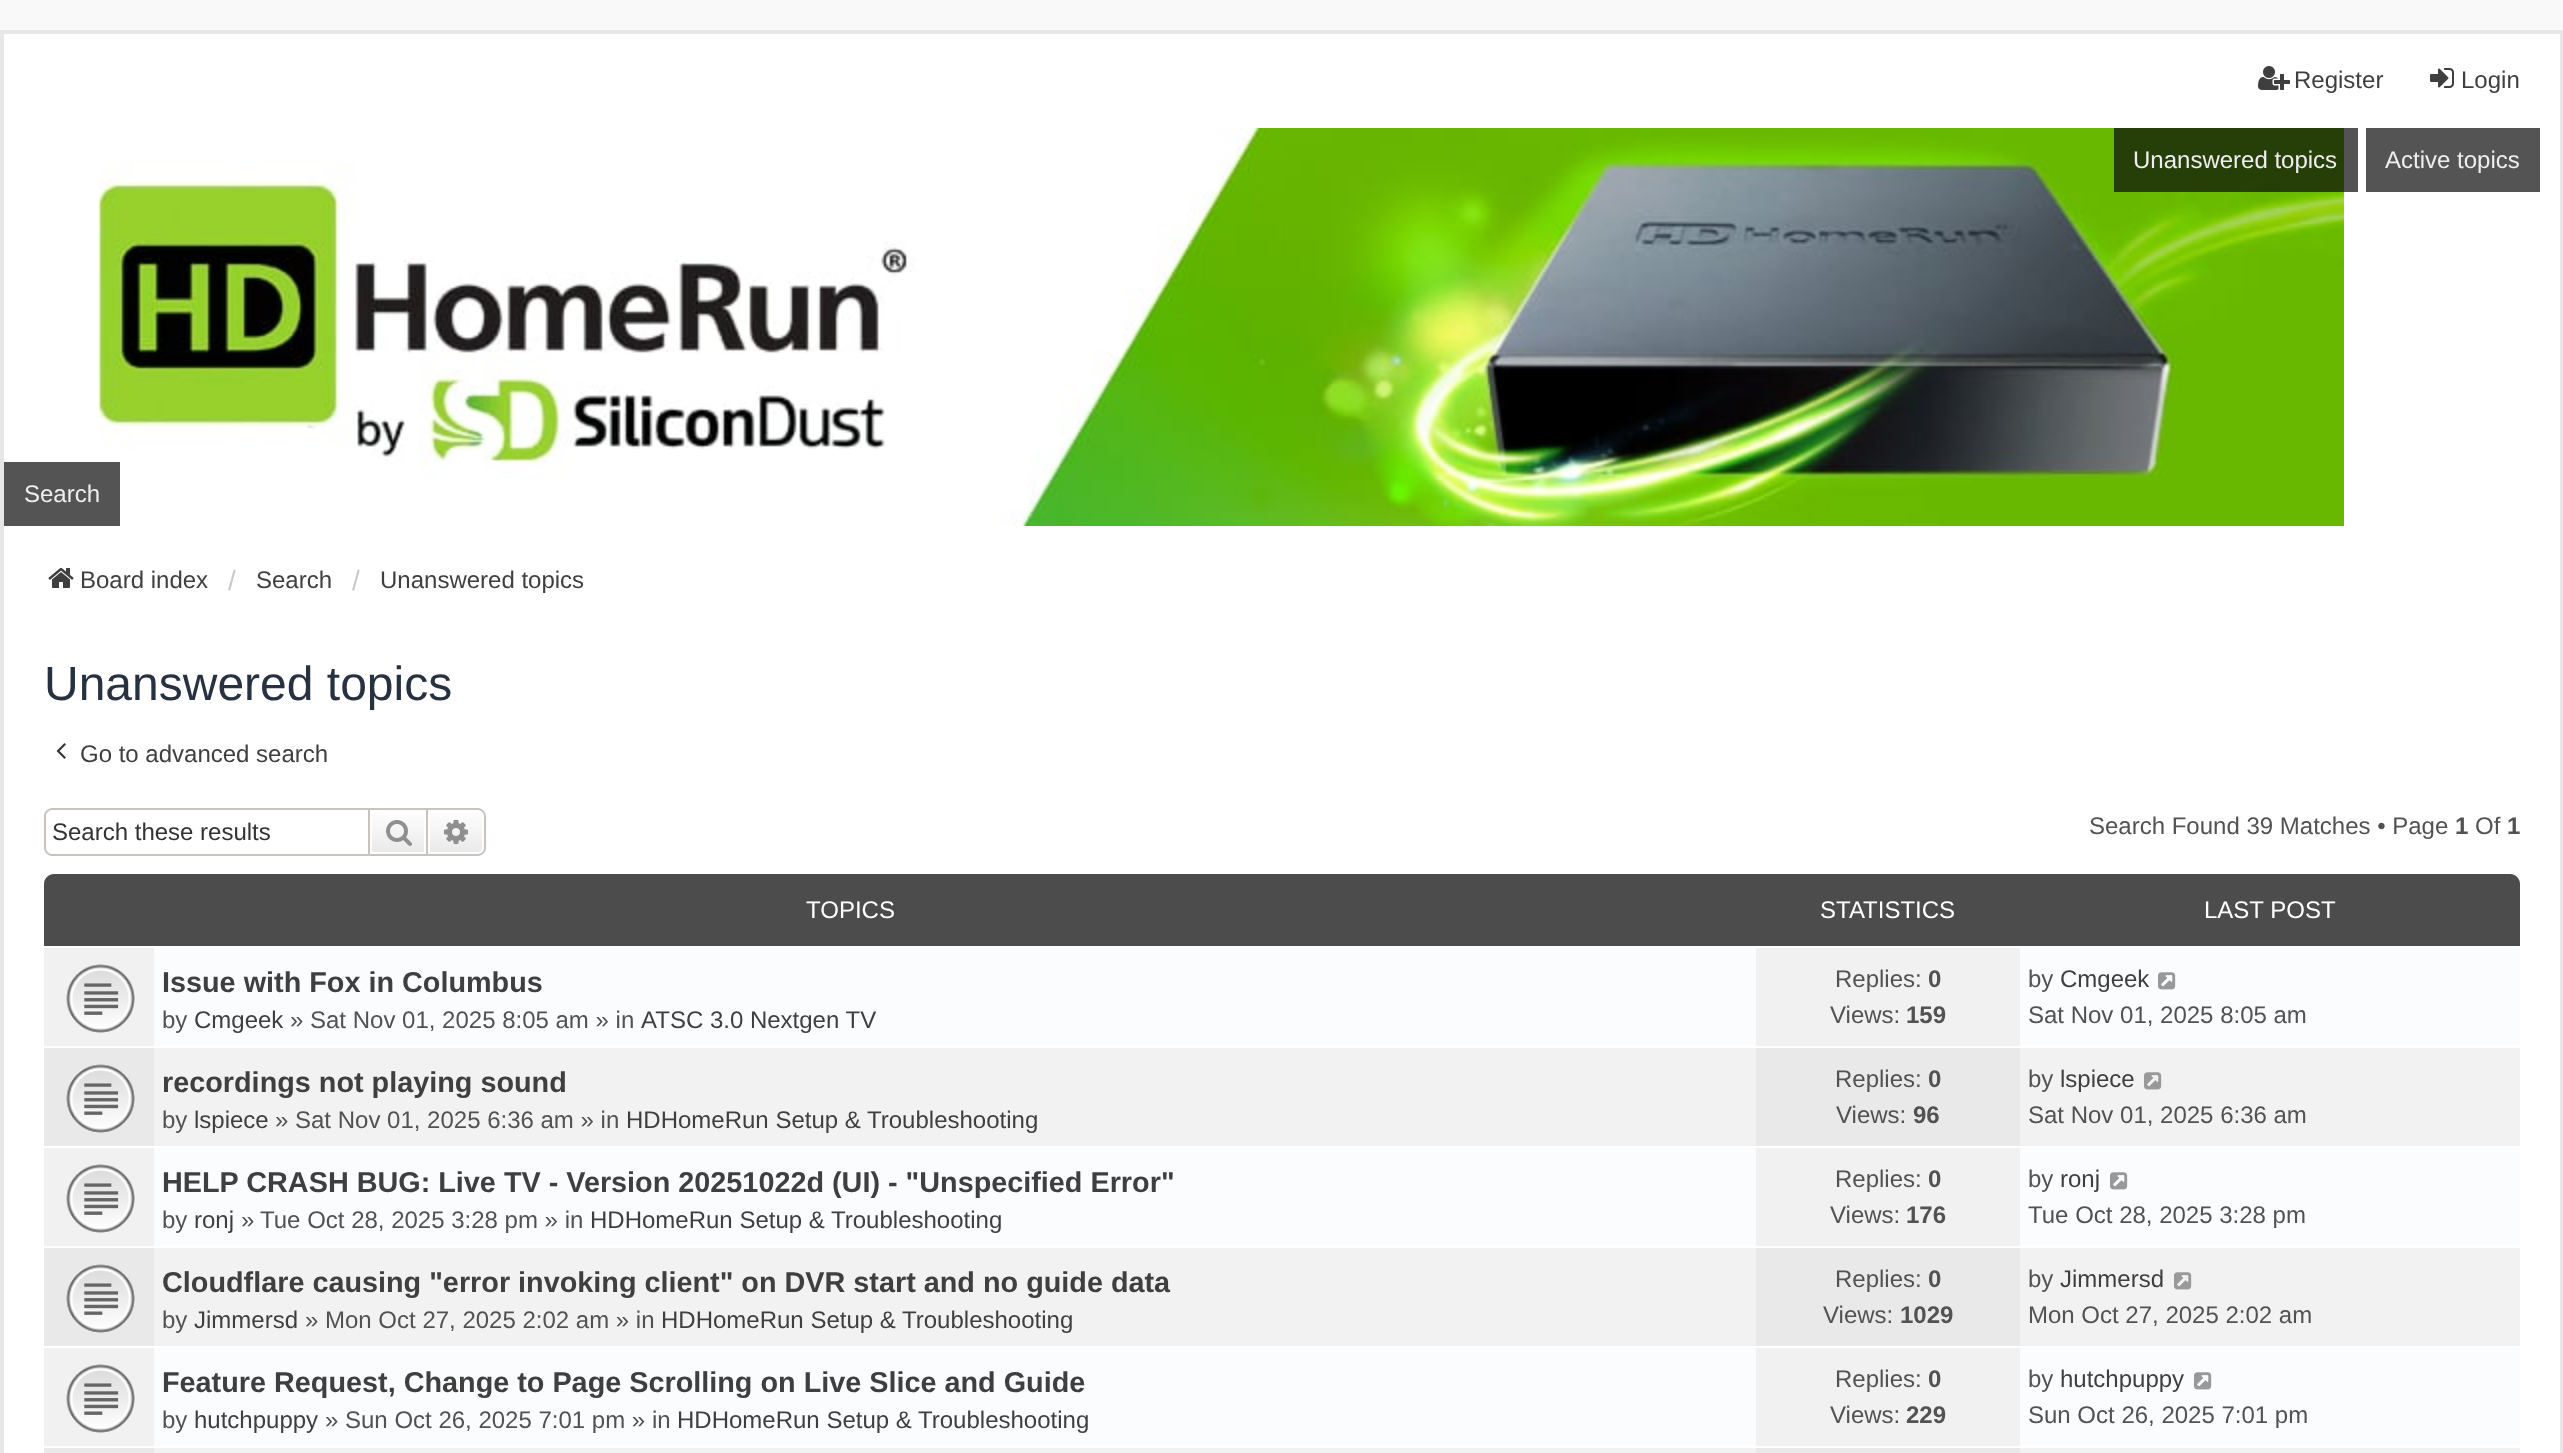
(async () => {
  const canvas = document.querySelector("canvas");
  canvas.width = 2563;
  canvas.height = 1453;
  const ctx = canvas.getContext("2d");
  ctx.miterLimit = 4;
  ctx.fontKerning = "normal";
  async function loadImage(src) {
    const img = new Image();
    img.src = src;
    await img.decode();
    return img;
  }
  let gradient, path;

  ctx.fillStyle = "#f9f9f9";
  ctx.fillRect(0, 0, 2563, 1453);
  for (const [x, y, w, h, color] of [
    [4, 34, 2556, 1419, "#ffffff"],
    [0, 30, 2563, 4, "#e7e7e7"],
    [2560, 30, 3, 1423, "#e7e7e7"],
    [0, 30, 4, 1423, "#e7e7e7"],
  ]) {
    ctx.fillStyle = color;
    ctx.fillRect(x, y, w, h);
  }
  ctx.drawImage(await loadImage("img/1.png"), 2258, 66, 32, 24);
  ctx.drawImage(await loadImage("img/2.png"), 2430, 68, 24, 20);
  ctx.drawImage(await loadImage("img/3.png"), 97, 128, 2247, 398);
  for (const [x, y, w, h, color] of [
    [2114, 128, 244, 64, "rgba(10, 10, 10, 0.7)"],
    [2366, 128, 174, 64, "#545454"],
    [4, 462, 116, 64, "#545454"],
  ]) {
    ctx.fillStyle = color;
    ctx.fillRect(x, y, w, h);
  }
  ctx.drawImage(await loadImage("img/4.png"), 48, 568, 26, 20);
  ctx.drawImage(await loadImage("img/5.png"), 56, 743, 10, 16);
  ctx.fillStyle = "#c7c3bf";
  path = new Path2D("M52 808H368V856H52C48 856 44 852 44 848V816C44 812 48 808 52 808ZM52 810H368V854H52C49 854 46 851 46 848V816C46 813 49 810 52 810Z");
  ctx.fill(path, "evenodd");
  gradient = ctx.createLinearGradient(398, 810, 398, 854);
  gradient.addColorStop(0, "#ffffff");
  gradient.addColorStop(1, "#e9e9e9");
  ctx.fillStyle = gradient;
  ctx.fillRect(372, 815, 52, 37);
  ctx.strokeStyle = "#c7c3bf";
  ctx.lineWidth = 2;
  ctx.strokeRect(369, 809, 58, 46);
  ctx.drawImage(await loadImage("img/6.png"), 386, 820, 26, 26);
  gradient = ctx.createLinearGradient(456, 810, 456, 854);
  gradient.addColorStop(0, "#ffffff");
  gradient.addColorStop(1, "#e9e9e9");
  ctx.fillStyle = gradient;
  ctx.beginPath();
  ctx.roundRect(429, 811, 54, 42, [0, 5, 5, 0]);
  ctx.fill();
  ctx.strokeStyle = "#ffffff";
  ctx.stroke();
  ctx.fillStyle = "#c7c3bf";
  path = new Path2D("M428 808H478C482 808 486 812 486 816V848C486 852 482 856 478 856H428ZM428 810H478C481 810 484 813 484 816V848C484 851 481 854 478 854H428Z");
  ctx.fill(path, "evenodd");
  ctx.drawImage(await loadImage("img/7.png"), 444, 820, 24, 24);
  ctx.fillStyle = "#4c4c4c";
  path = new Path2D("M54 874H2510C2515.5 874 2520 878.5 2520 884V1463H44V884C44 878.5 48.5 874 54 874Z");
  ctx.fill(path);
  for (const [x, y, w, h, color] of [
    [154, 948, 2366, 498, "#fafcfe"],
    [44, 946, 2476, 2, "#ffffff"],
    [44, 948, 110, 98, "#f1f1f1"],
  ]) {
    ctx.fillStyle = color;
    ctx.fillRect(x, y, w, h);
  }
  ctx.drawImage(await loadImage("img/8.png"), 66, 964, 69, 69);
  ctx.fillRect(1756, 948, 264, 98);
  ctx.drawImage(await loadImage("img/9.png"), 2158, 972, 18, 18);
  for (const [x, y, w, h, color] of [
    [154, 1048, 2366, 98, "#f2f2f2"],
    [44, 1046, 2476, 2, "#ffffff"],
    [44, 1048, 110, 98, "#e9e9e9"],
  ]) {
    ctx.fillStyle = color;
    ctx.fillRect(x, y, w, h);
  }
  ctx.drawImage(await loadImage("img/10.png"), 66, 1064, 69, 69);
  ctx.fillRect(1756, 1048, 264, 98);
  ctx.drawImage(await loadImage("img/11.png"), 2144, 1072, 18, 18);
  ctx.fillStyle = "#ffffff";
  ctx.fillRect(44, 1146, 2476, 2);
  ctx.fillStyle = "#f1f1f1";
  ctx.fillRect(44, 1148, 110, 98);
  ctx.drawImage(await loadImage("img/8.png"), 66, 1164, 69, 69);
  ctx.fillRect(1756, 1148, 264, 98);
  ctx.drawImage(await loadImage("img/9.png"), 2110, 1172, 18, 18);
  for (const [x, y, w, h, color] of [
    [154, 1248, 2366, 98, "#f2f2f2"],
    [44, 1246, 2476, 2, "#ffffff"],
    [44, 1248, 110, 98, "#e9e9e9"],
  ]) {
    ctx.fillStyle = color;
    ctx.fillRect(x, y, w, h);
  }
  ctx.drawImage(await loadImage("img/10.png"), 66, 1264, 69, 69);
  ctx.fillRect(1756, 1248, 264, 98);
  ctx.drawImage(await loadImage("img/11.png"), 2174, 1272, 18, 18);
  ctx.fillStyle = "#ffffff";
  ctx.fillRect(44, 1346, 2476, 2);
  ctx.fillStyle = "#f1f1f1";
  ctx.fillRect(44, 1348, 110, 98);
  ctx.drawImage(await loadImage("img/8.png"), 66, 1364, 69, 69);
  ctx.fillRect(1756, 1348, 264, 98);
  ctx.drawImage(await loadImage("img/9.png"), 2194, 1372, 18, 18);
  for (const [x, y, w, h, color] of [
    [154, 1448, 2366, 5, "#f2f2f2"],
    [44, 1446, 2476, 2, "#ffffff"],
    [44, 1448, 110, 5, "#e9e9e9"],
    [1756, 1448, 264, 5, "#e9e9e9"],
  ]) {
    ctx.fillStyle = color;
    ctx.fillRect(x, y, w, h);
  }
  ctx.font = "24px Liberation Sans";
  ctx.fillStyle = "#3f3f3f";
  ctx.fillText("Register", 2294, 88);
  ctx.fillText("Login", 2461, 88);
  ctx.fillStyle = "#eeeeee";
  for (const [text, x, y] of [
    ["Unanswered topics", 2133, 168],
    ["Active topics", 2385, 168],
    ["Search", 24, 502],
  ]) {
    ctx.fillText(text, x, y);
  }
  ctx.fillStyle = "#3f3f3f";
  ctx.fillText("Board index", 80, 588);
  ctx.font = "28px Liberation Sans";
  ctx.fillStyle = "#cacaca";
  ctx.fillText("/", 228, 590);
  ctx.font = "24px Liberation Sans";
  ctx.fillStyle = "#3f3f3f";
  ctx.fillText("Search", 256, 588);
  ctx.font = "28px Liberation Sans";
  ctx.fillStyle = "#cacaca";
  ctx.fillText("/", 352, 590);
  ctx.font = "24px Liberation Sans";
  ctx.fillStyle = "#3f3f3f";
  ctx.fillText("Unanswered topics", 380, 588);
  ctx.font = "48px Liberation Sans";
  ctx.fillStyle = "#28313f";
  ctx.fillText("Unanswered topics", 44, 700);
  ctx.font = "24px Liberation Sans";
  ctx.fillStyle = "#3f3f3f";
  ctx.fillText("Go to advanced search", 80, 762);
  ctx.fillStyle = "#333333";
  ctx.fillText("Search these results", 52, 840);
  ctx.fillStyle = "#525252";
  ctx.fillText("Search Found 39 Matches • Page", 2089, 834);
  ctx.font = "bold 24px Liberation Sans";
  ctx.fillText("1", 2455, 834);
  ctx.font = "24px Liberation Sans";
  ctx.fillText("Of", 2475, 834);
  ctx.font = "bold 24px Liberation Sans";
  ctx.fillText("1", 2507, 834);
  ctx.font = "24px Liberation Sans";
  ctx.fillStyle = "#ffffff";
  for (const [text, x, y] of [
    ["TOPICS", 806, 918],
    ["STATISTICS", 1820, 918],
    ["LAST POST", 2204, 918],
  ]) {
    ctx.fillText(text, x, y);
  }
  ctx.font = "bold 28.8px Liberation Sans";
  ctx.fillStyle = "#3f3f3f";
  ctx.fillText("Issue with Fox in Columbus", 162, 992);
  ctx.font = "24px Liberation Sans";
  ctx.fillStyle = "#525252";
  ctx.fillText("by", 162, 1028);
  ctx.fillStyle = "#3f3f3f";
  ctx.fillText("Cmgeek", 194, 1028);
  ctx.fillStyle = "#525252";
  ctx.fillText("» Sat Nov 01, 2025 8:05 am » in", 290, 1028);
  ctx.fillStyle = "#3f3f3f";
  ctx.fillText("ATSC 3.0 Nextgen TV", 641, 1028);
  ctx.fillStyle = "#525252";
  ctx.fillText("Replies:", 1835, 987);
  ctx.font = "bold 24px Liberation Sans";
  ctx.fillText("0", 1928, 987);
  ctx.font = "24px Liberation Sans";
  ctx.fillText("Views:", 1830, 1023);
  ctx.font = "bold 24px Liberation Sans";
  ctx.fillText("159", 1906, 1023);
  ctx.font = "24px Liberation Sans";
  ctx.fillText("by", 2028, 987);
  ctx.fillStyle = "#3f3f3f";
  ctx.fillText("Cmgeek", 2060, 987);
  ctx.fillStyle = "#525252";
  ctx.fillText("Sat Nov 01, 2025 8:05 am", 2028, 1023);
  ctx.font = "bold 28.8px Liberation Sans";
  ctx.fillStyle = "#3f3f3f";
  ctx.fillText("recordings not playing sound", 162, 1092);
  ctx.font = "24px Liberation Sans";
  ctx.fillStyle = "#525252";
  ctx.fillText("by", 162, 1128);
  ctx.fillStyle = "#3f3f3f";
  ctx.fillText("lspiece", 194, 1128);
  ctx.fillStyle = "#525252";
  ctx.fillText("» Sat Nov 01, 2025 6:36 am » in", 275, 1128);
  ctx.fillStyle = "#3f3f3f";
  ctx.fillText("HDHomeRun Setup & Troubleshooting", 626, 1128);
  ctx.fillStyle = "#525252";
  ctx.fillText("Replies:", 1835, 1087);
  ctx.font = "bold 24px Liberation Sans";
  ctx.fillText("0", 1928, 1087);
  ctx.font = "24px Liberation Sans";
  ctx.fillText("Views:", 1836, 1123);
  ctx.font = "bold 24px Liberation Sans";
  ctx.fillText("96", 1913, 1123);
  ctx.font = "24px Liberation Sans";
  ctx.fillText("by", 2028, 1087);
  ctx.fillStyle = "#3f3f3f";
  ctx.fillText("lspiece", 2060, 1087);
  ctx.fillStyle = "#525252";
  ctx.fillText("Sat Nov 01, 2025 6:36 am", 2028, 1123);
  ctx.font = "bold 28.8px Liberation Sans";
  ctx.fillStyle = "#3f3f3f";
  ctx.fillText("HELP CRASH BUG: Live TV - Version 20251022d (UI) - \"Unspecified Error\"", 162, 1192);
  ctx.font = "24px Liberation Sans";
  ctx.fillStyle = "#525252";
  ctx.fillText("by", 162, 1228);
  ctx.fillStyle = "#3f3f3f";
  ctx.fillText("ronj", 194, 1228);
  ctx.fillStyle = "#525252";
  ctx.fillText("»", 241, 1228);
  ctx.fillText("Tue Oct 28, 2025 3:28 pm » in", 260, 1228);
  ctx.fillStyle = "#3f3f3f";
  ctx.fillText("HDHomeRun Setup & Troubleshooting", 590, 1228);
  ctx.fillStyle = "#525252";
  ctx.fillText("Replies:", 1835, 1187);
  ctx.font = "bold 24px Liberation Sans";
  ctx.fillText("0", 1928, 1187);
  ctx.font = "24px Liberation Sans";
  ctx.fillText("Views:", 1830, 1223);
  ctx.font = "bold 24px Liberation Sans";
  ctx.fillText("176", 1906, 1223);
  ctx.font = "24px Liberation Sans";
  ctx.fillText("by", 2028, 1187);
  ctx.fillStyle = "#3f3f3f";
  ctx.fillText("ronj", 2060, 1187);
  ctx.fillStyle = "#525252";
  ctx.fillText("Tue Oct 28, 2025 3:28 pm", 2028, 1223);
  ctx.font = "bold 28.8px Liberation Sans";
  ctx.fillStyle = "#3f3f3f";
  ctx.fillText("Cloudflare causing \"error invoking client\" on DVR start and no guide data", 162, 1292);
  ctx.font = "24px Liberation Sans";
  ctx.fillStyle = "#525252";
  ctx.fillText("by", 162, 1328);
  ctx.fillStyle = "#3f3f3f";
  ctx.fillText("Jimmersd", 194, 1328);
  ctx.fillStyle = "#525252";
  ctx.fillText("» Mon Oct 27, 2025 2:02 am » in", 305, 1328);
  ctx.fillStyle = "#3f3f3f";
  ctx.fillText("HDHomeRun Setup & Troubleshooting", 661, 1328);
  ctx.fillStyle = "#525252";
  ctx.fillText("Replies:", 1835, 1287);
  ctx.font = "bold 24px Liberation Sans";
  ctx.fillText("0", 1928, 1287);
  ctx.font = "24px Liberation Sans";
  ctx.fillText("Views:", 1823, 1323);
  ctx.font = "bold 24px Liberation Sans";
  ctx.fillText("1029", 1900, 1323);
  ctx.font = "24px Liberation Sans";
  ctx.fillText("by", 2028, 1287);
  ctx.fillStyle = "#3f3f3f";
  ctx.fillText("Jimmersd", 2060, 1287);
  ctx.fillStyle = "#525252";
  ctx.fillText("Mon Oct 27, 2025 2:02 am", 2028, 1323);
  ctx.font = "bold 28.8px Liberation Sans";
  ctx.fillStyle = "#3f3f3f";
  ctx.fillText("Feature Request, Change to Page Scrolling on Live Slice and Guide", 162, 1392);
  ctx.font = "24px Liberation Sans";
  ctx.fillStyle = "#525252";
  ctx.fillText("by", 162, 1428);
  ctx.fillStyle = "#3f3f3f";
  ctx.fillText("hutchpuppy", 194, 1428);
  ctx.fillStyle = "#525252";
  ctx.fillText("» Sun Oct 26, 2025 7:01 pm » in", 325, 1428);
  ctx.fillStyle = "#3f3f3f";
  ctx.fillText("HDHomeRun Setup & Troubleshooting", 677, 1428);
  ctx.fillStyle = "#525252";
  ctx.fillText("Replies:", 1835, 1387);
  ctx.font = "bold 24px Liberation Sans";
  ctx.fillText("0", 1928, 1387);
  ctx.font = "24px Liberation Sans";
  ctx.fillText("Views:", 1830, 1423);
  ctx.font = "bold 24px Liberation Sans";
  ctx.fillText("229", 1906, 1423);
  ctx.font = "24px Liberation Sans";
  ctx.fillText("by", 2028, 1387);
  ctx.fillStyle = "#3f3f3f";
  ctx.fillText("hutchpuppy", 2060, 1387);
  ctx.fillStyle = "#525252";
  ctx.fillText("Sun Oct 26, 2025 7:01 pm", 2028, 1423);
})();
